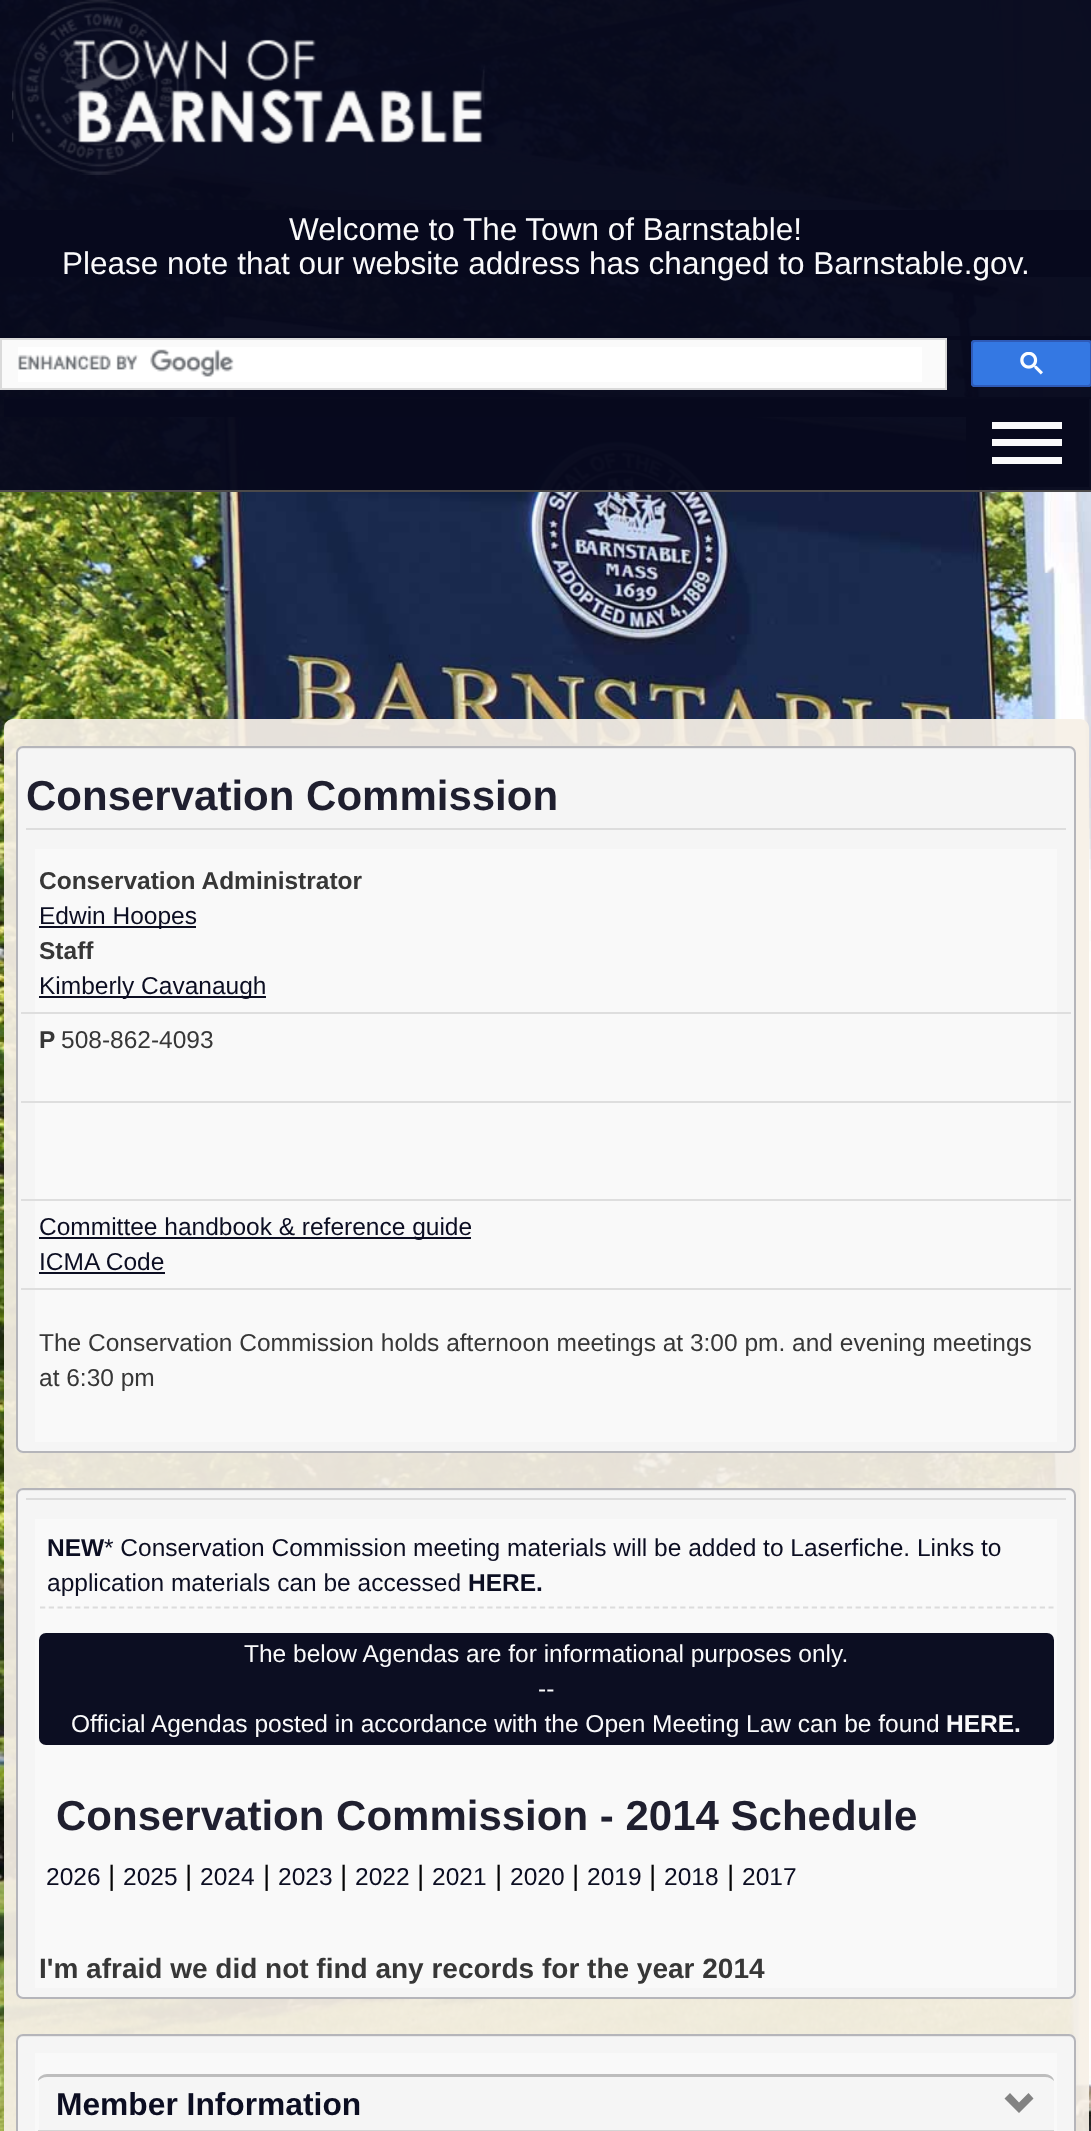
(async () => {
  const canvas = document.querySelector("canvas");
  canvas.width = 1091;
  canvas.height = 2131;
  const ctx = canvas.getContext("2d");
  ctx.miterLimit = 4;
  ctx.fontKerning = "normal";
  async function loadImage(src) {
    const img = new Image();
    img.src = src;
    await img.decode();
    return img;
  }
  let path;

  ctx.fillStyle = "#ffffff";
  ctx.fillRect(0, 0, 1091, 2131);
  ctx.drawImage(await loadImage("img/1.png"), 0, 0, 1091, 2131);
  ctx.fillStyle = "rgba(7, 9, 30, 0.98)";
  ctx.fillRect(0, 0, 1091, 277);
  ctx.drawImage(await loadImage("img/2.png"), 12, 0, 473, 175);
  ctx.beginPath();
  ctx.roundRect(-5, 210, 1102, 130, 7);
  ctx.fill();
  for (const [x, y, w, h, color] of [
    [0, 397, 1091, 95, "rgba(7, 9, 30, 0.98)"],
    [0, 397, 1091, 2, "rgba(78, 75, 75, 0.98)"],
    [0, 336, 1091, 63, "rgba(7, 9, 30, 0.98)"],
  ]) {
    ctx.fillStyle = color;
    ctx.fillRect(x, y, w, h);
  }
  ctx.fillStyle = "rgba(255, 255, 255, 0.98)";
  ctx.beginPath();
  ctx.rect(1, 339, 945, 50);
  ctx.fill();
  ctx.strokeStyle = "#dadada";
  ctx.lineWidth = 2;
  ctx.stroke();
  ctx.fillStyle = "#ffffff";
  ctx.fillRect(18, 347, 904, 35);
  ctx.drawImage(await loadImage("img/3.png"), 18, 349, 216, 28);
  ctx.fillStyle = "rgba(53, 122, 232, 0.98)";
  ctx.beginPath();
  ctx.roundRect(971, 340, 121, 47, 4);
  ctx.fill();
  ctx.beginPath();
  ctx.roundRect(972, 341, 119, 45, 3);
  ctx.strokeStyle = "rgba(47, 91, 183, 0.98)";
  ctx.stroke();
  ctx.drawImage(await loadImage("img/4.png"), 1020, 352, 23, 23);
  for (const [x, y, w, h, color] of [
    [0, 490, 1091, 2, "rgba(78, 75, 75, 0.98)"],
    [4, 399, 1085, 18, "rgba(7, 9, 30, 0.98)"],
    [966, 417, 123, 70, "rgba(7, 9, 30, 0.98)"],
    [992, 422, 70, 7, "#fafafb"],
    [992, 439, 70, 7, "#fafafb"],
    [992, 457, 70, 7, "#fafafb"],
  ]) {
    ctx.fillStyle = color;
    ctx.fillRect(x, y, w, h);
  }
  ctx.fillStyle = "rgba(246, 240, 230, 0.93)";
  path = new Path2D("M13 719H1080C1085 719 1089 723 1089 728V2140H4V728C4 723 8 719 13 719Z");
  ctx.fill(path);
  ctx.fillStyle = "rgba(245, 245, 245, 0.98)";
  ctx.beginPath();
  ctx.roundRect(16, 746, 1060, 707, 7);
  ctx.fill();
  ctx.fillStyle = "#e9e9e9";
  path = new Path2D("M23 749H1069C1072 749 1074 751 1074 754V1447L1073 1450C1074 1449 1075 1447 1075 1446V752C1075 749 1073 747 1070 747H23C20 747 18 749 18 752V754C18 751 20 749 23 749Z");
  ctx.fill(path);
  ctx.beginPath();
  ctx.roundRect(17, 747, 1058, 705, 6);
  ctx.strokeStyle = "rgba(180, 180, 185, 0.98)";
  ctx.stroke();
  for (const [x, y, w, h, color] of [
    [26, 828, 1040, 2, "#dddddd"],
    [35, 849, 1022, 593, "#f9f9f9"],
    [39, 926, 157, 2, "#0c0e22"],
    [39, 996, 227, 2, "#0c0e22"],
    [21, 1012, 1050, 2, "rgba(221, 221, 221, 0.98)"],
    [21, 1101, 1050, 2, "rgba(221, 221, 221, 0.98)"],
    [21, 1199, 1050, 2, "rgba(221, 221, 221, 0.98)"],
    [39, 1237, 432, 2, "#0c0e22"],
    [39, 1272, 126, 2, "#0c0e22"],
    [21, 1288, 1050, 2, "rgba(221, 221, 221, 0.98)"],
  ]) {
    ctx.fillStyle = color;
    ctx.fillRect(x, y, w, h);
  }
  ctx.fillStyle = "rgba(245, 245, 245, 0.98)";
  ctx.beginPath();
  ctx.roundRect(16, 1488, 1060, 511, 7);
  ctx.fill();
  ctx.fillStyle = "#e9e9e9";
  path = new Path2D("M23 1491H1069C1072 1491 1074 1493 1074 1496V1993L1073 1996C1074 1995 1075 1993 1075 1992V1494C1075 1491 1073 1489 1070 1489H23C20 1489 18 1491 18 1494V1496C18 1493 20 1491 23 1491Z");
  ctx.fill(path);
  ctx.beginPath();
  ctx.roundRect(17, 1489, 1058, 509, 6);
  ctx.stroke();
  ctx.fillStyle = "#dddddd";
  ctx.fillRect(26, 1498, 1040, 2);
  ctx.fillStyle = "#f9f9f9";
  ctx.fillRect(35, 1519, 1022, 469);
  path = new Path2D("M40 1607.5H1053.5");
  ctx.strokeStyle = "#dcdcdc";
  ctx.lineWidth = 1.8;
  ctx.setLineDash([5.25, 3.52]);
  ctx.stroke(path);
  ctx.fillStyle = "#0c0e22";
  ctx.beginPath();
  ctx.roundRect(39, 1633, 1015, 112, 7);
  ctx.fill();
  ctx.fillStyle = "rgba(245, 245, 245, 0.98)";
  ctx.beginPath();
  ctx.roundRect(16, 2034, 1060, 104, 7);
  ctx.fill();
  ctx.fillStyle = "#e9e9e9";
  path = new Path2D("M23 2037H1069C1072 2037 1074 2039 1074 2042V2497C1075 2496 1075 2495 1075 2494V2040C1075 2037 1073 2035 1070 2035H23C20 2035 18 2037 18 2040V2042C18 2039 20 2037 23 2037Z");
  ctx.fill(path);
  ctx.beginPath();
  ctx.roundRect(17, 2035, 1058, 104, 6);
  ctx.strokeStyle = "rgba(180, 180, 185, 0.98)";
  ctx.lineWidth = 2;
  ctx.setLineDash([]);
  ctx.stroke();
  ctx.fillStyle = "#f9f9f9";
  ctx.fillRect(35, 2053, 1022, 78);
  ctx.fillStyle = "rgba(255, 255, 255, 0.98)";
  ctx.beginPath();
  ctx.roundRect(39, 2074, 1015, 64, 7);
  ctx.fill();
  ctx.fillStyle = "#f5f5f5";
  path = new Path2D("M48 2074H1045C1050 2074 1054 2078 1054 2083V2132H39V2083C39 2078 43 2074 48 2074Z");
  ctx.fill(path);
  ctx.fillStyle = "rgba(188, 188, 188, 0.98)";
  path = new Path2D("M47 2074H1045C1049 2074 1054 2077 1054 2081C1052 2079 1049 2077 1045 2077H47C43 2077 40 2079 38 2081C38 2077 43 2074 47 2074Z");
  ctx.fill(path);
  ctx.fillStyle = "#d4d4d4";
  ctx.fillRect(38, 2130, 1016, 1);
  ctx.fillStyle = "#828282";
  path = new Path2D("M1033.5 2098.5L1019 2113L1004.5 2098.5L1010 2093L1019 2102.5L1028.5 2093Z");
  ctx.fill(path);
  ctx.font = "31.5px Liberation Sans";
  ctx.fillStyle = "#fafafb";
  ctx.fillText("Welcome to The Town of Barnstable!", 289, 240);
  ctx.fillText("Please note that our website address has changed to Barnstable.gov.", 62, 274);
  ctx.font = "bold 42px Liberation Sans";
  ctx.fillStyle = "#1f1f2f";
  ctx.fillText("Conservation Commission", 26, 810);
  ctx.font = "bold 24.5px Liberation Sans";
  ctx.fillStyle = "#373737";
  ctx.fillText("Conservation Administrator", 39, 889);
  ctx.font = "24.5px Liberation Sans";
  ctx.fillStyle = "#0c0e22";
  ctx.fillText("Edwin Hoopes", 39, 924);
  ctx.font = "bold 24.5px Liberation Sans";
  ctx.fillStyle = "#373737";
  ctx.fillText("Staff", 39, 959);
  ctx.font = "24.5px Liberation Sans";
  ctx.fillStyle = "#0c0e22";
  ctx.fillText("Kimberly Cavanaugh", 39, 994);
  ctx.font = "bold 24.5px Liberation Sans";
  ctx.fillStyle = "#373737";
  ctx.fillText("P", 39, 1048);
  ctx.font = "24.5px Liberation Sans";
  ctx.fillText("508-862-4093", 61, 1048);
  ctx.fillStyle = "#0c0e22";
  ctx.fillText("Committee handbook & reference guide", 39, 1235);
  ctx.fillText("ICMA Code", 39, 1270);
  ctx.fillStyle = "#373737";
  ctx.fillText("The Conservation Commission holds afternoon meetings at 3:00 pm. and evening meetings", 39, 1351);
  ctx.fillText("at 6:30 pm", 39, 1386);
  ctx.font = "bold 24.5px Liberation Sans";
  ctx.fillStyle = "#0c0e22";
  ctx.fillText("NEW", 47, 1556);
  ctx.font = "24.5px Liberation Sans";
  ctx.fillText("* Conservation Commission meeting materials will be added to Laserfiche. Links to", 104, 1556);
  ctx.fillText("application materials can be accessed", 47, 1591);
  ctx.font = "bold 24.5px Liberation Sans";
  ctx.fillText("HERE.", 468, 1591);
  ctx.font = "24.5px Liberation Sans";
  ctx.fillStyle = "#fafafb";
  for (const [text, x, y] of [
    ["The below Agendas are for informational purposes only.", 244, 1662],
    ["--", 538, 1697],
    ["Official Agendas posted in accordance with the Open Meeting Law can be found", 71, 1732],
  ]) {
    ctx.fillText(text, x, y);
  }
  ctx.font = "bold 24.5px Liberation Sans";
  ctx.fillText("HERE.", 946, 1732);
  ctx.font = "bold 42px Liberation Sans";
  ctx.fillStyle = "#1f1f2f";
  ctx.fillText("Conservation Commission - 2014 Schedule", 56, 1830);
  ctx.font = "24.5px Liberation Sans";
  ctx.fillStyle = "#0c0e22";
  ctx.fillText("2026", 46, 1885);
  ctx.font = "28px Liberation Sans";
  ctx.fillStyle = "#050505";
  ctx.fillText("|", 108, 1885);
  ctx.font = "24.5px Liberation Sans";
  ctx.fillStyle = "#0c0e22";
  ctx.fillText("2025", 123, 1885);
  ctx.font = "28px Liberation Sans";
  ctx.fillStyle = "#050505";
  ctx.fillText("|", 185, 1885);
  ctx.font = "24.5px Liberation Sans";
  ctx.fillStyle = "#0c0e22";
  ctx.fillText("2024", 200, 1885);
  ctx.font = "28px Liberation Sans";
  ctx.fillStyle = "#050505";
  ctx.fillText("|", 263, 1885);
  ctx.font = "24.5px Liberation Sans";
  ctx.fillStyle = "#0c0e22";
  ctx.fillText("2023", 278, 1885);
  ctx.font = "28px Liberation Sans";
  ctx.fillStyle = "#050505";
  ctx.fillText("|", 340, 1885);
  ctx.font = "24.5px Liberation Sans";
  ctx.fillStyle = "#0c0e22";
  ctx.fillText("2022", 355, 1885);
  ctx.font = "28px Liberation Sans";
  ctx.fillStyle = "#050505";
  ctx.fillText("|", 417, 1885);
  ctx.font = "24.5px Liberation Sans";
  ctx.fillStyle = "#0c0e22";
  ctx.fillText("2021", 432, 1885);
  ctx.font = "28px Liberation Sans";
  ctx.fillStyle = "#050505";
  ctx.fillText("|", 495, 1885);
  ctx.font = "24.5px Liberation Sans";
  ctx.fillStyle = "#0c0e22";
  ctx.fillText("2020", 510, 1885);
  ctx.font = "28px Liberation Sans";
  ctx.fillStyle = "#050505";
  ctx.fillText("|", 572, 1885);
  ctx.font = "24.5px Liberation Sans";
  ctx.fillStyle = "#0c0e22";
  ctx.fillText("2019", 587, 1885);
  ctx.font = "28px Liberation Sans";
  ctx.fillStyle = "#050505";
  ctx.fillText("|", 649, 1885);
  ctx.font = "24.5px Liberation Sans";
  ctx.fillStyle = "#0c0e22";
  ctx.fillText("2018", 664, 1885);
  ctx.font = "28px Liberation Sans";
  ctx.fillStyle = "#050505";
  ctx.fillText("|", 727, 1885);
  ctx.font = "24.5px Liberation Sans";
  ctx.fillStyle = "#0c0e22";
  ctx.fillText("2017", 742, 1885);
  ctx.font = "bold 28px Liberation Sans";
  ctx.fillStyle = "#373737";
  ctx.fillText("I'm afraid we did not find any records for the year 2014", 39, 1978);
  ctx.font = "bold 31.75px Liberation Sans";
  ctx.fillStyle = "#0c0e22";
  ctx.fillText("Member Information", 56, 2115);
})();
